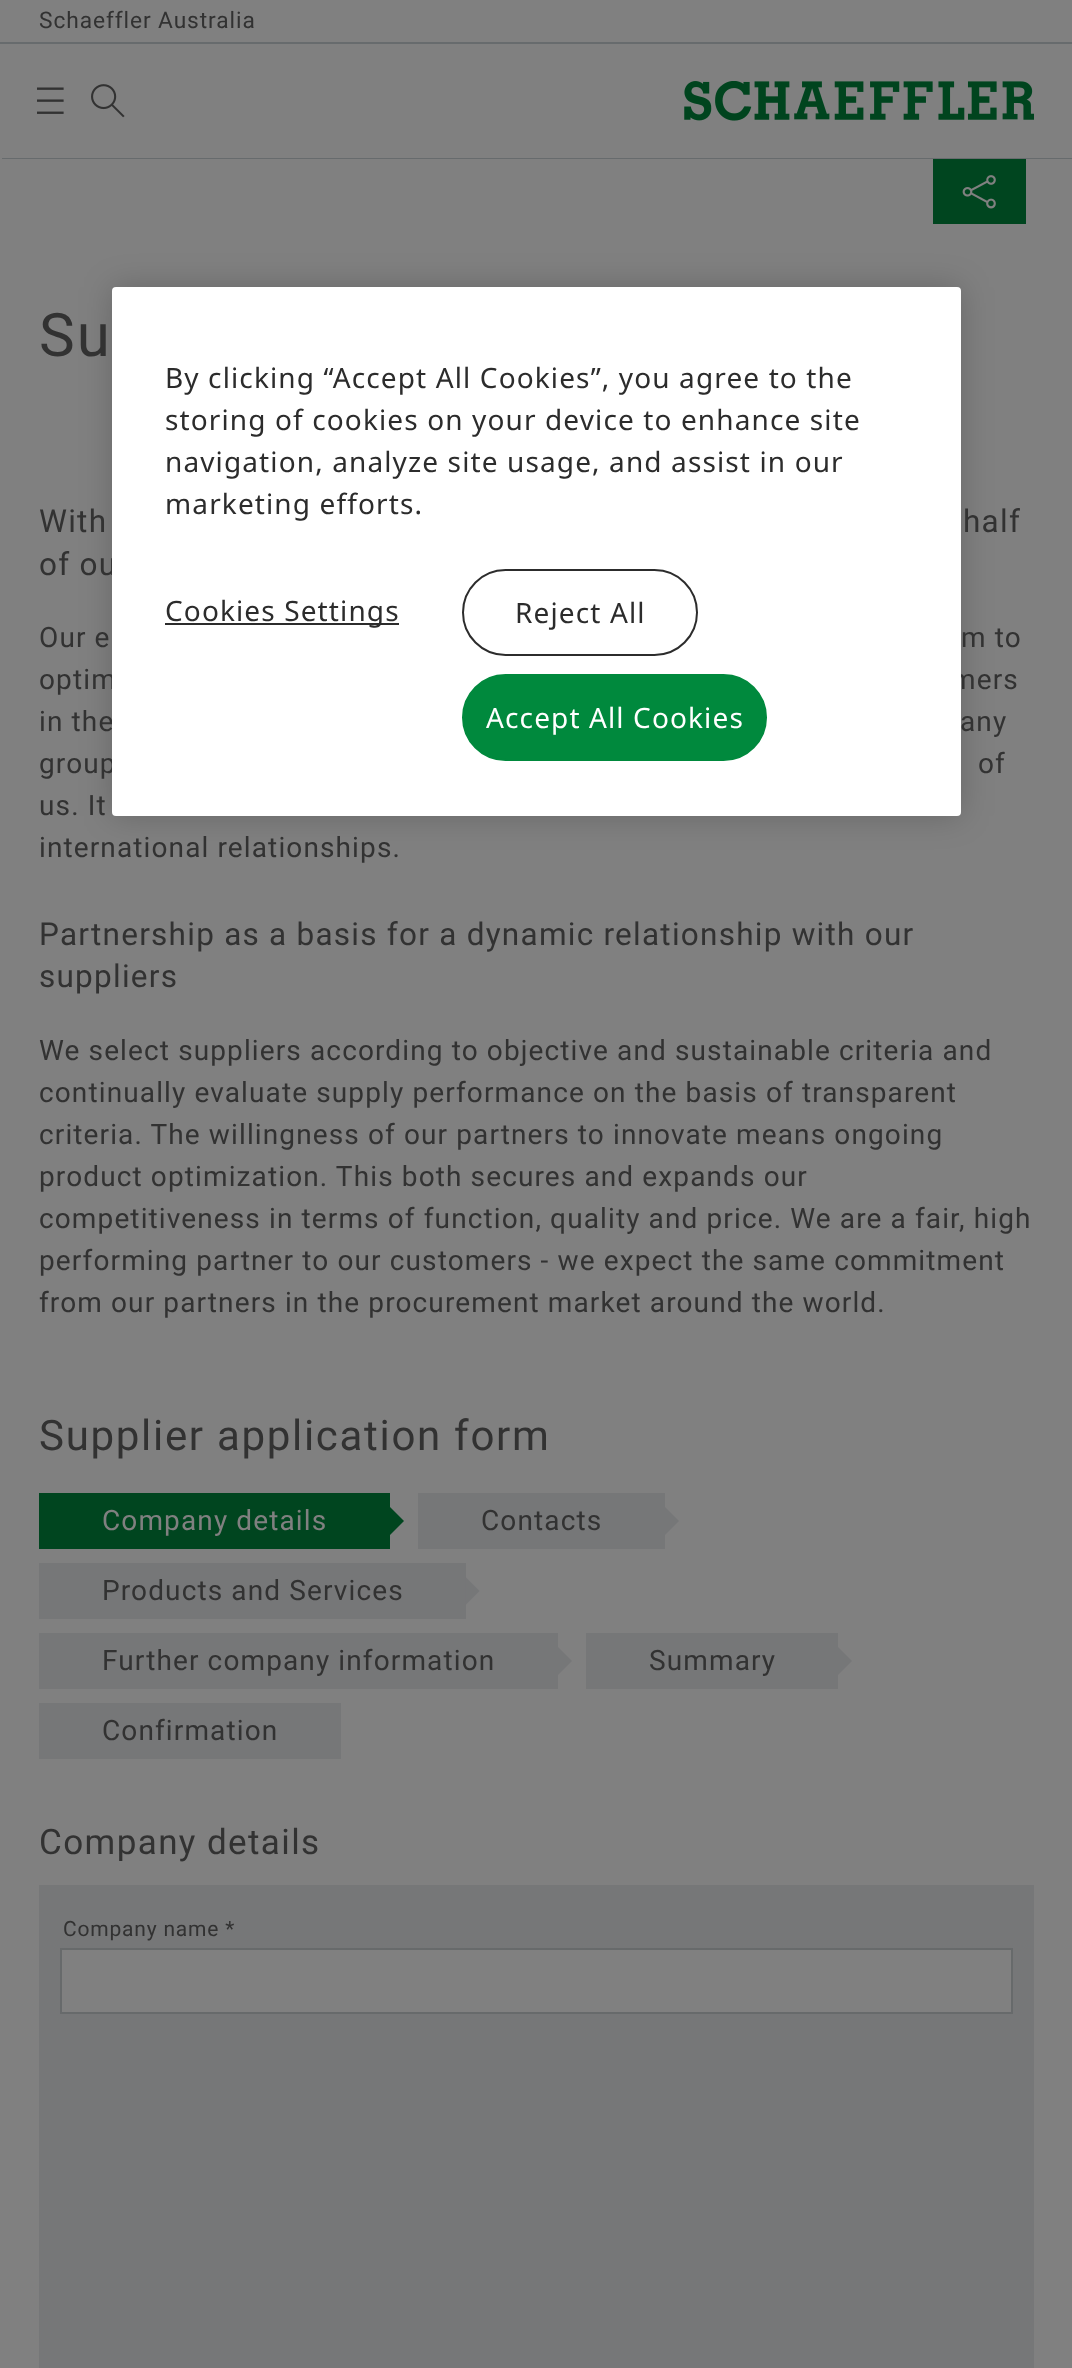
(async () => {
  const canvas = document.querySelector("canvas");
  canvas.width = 1072;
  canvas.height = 2368;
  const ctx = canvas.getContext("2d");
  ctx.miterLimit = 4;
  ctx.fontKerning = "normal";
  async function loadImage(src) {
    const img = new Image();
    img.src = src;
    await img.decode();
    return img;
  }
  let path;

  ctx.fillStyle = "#808080";
  ctx.fillRect(0, 0, 1072, 2368);
  ctx.fillStyle = "#676b6d";
  ctx.fillRect(0, 42, 1072, 2);
  ctx.drawImage(await loadImage("img/1.png"), 37, 87, 27, 27);
  ctx.drawImage(await loadImage("img/2.png"), 91, 84, 34, 34);
  ctx.drawImage(await loadImage("img/3.png"), 684, 81, 350, 40);
  ctx.fillRect(2, 158, 1070, 1);
  ctx.fillStyle = "#00451f";
  ctx.fillRect(933, 159, 93, 65);
  ctx.drawImage(await loadImage("img/4.png"), 962, 175, 34, 34);
  ctx.fillRect(39, 1493, 351, 56);
  path = new Path2D("M390 1535V1507L404 1521Z");
  ctx.fill(path);
  ctx.fillStyle = "#767778";
  ctx.fillRect(418, 1493, 247, 56);
  path = new Path2D("M665 1535V1507L679 1521Z");
  ctx.fill(path);
  ctx.fillRect(39, 1563, 427, 56);
  path = new Path2D("M465.5 1605V1577L479.5 1591Z");
  ctx.fill(path);
  ctx.fillRect(39, 1633, 519, 56);
  path = new Path2D("M558 1675V1647L572 1661Z");
  ctx.fill(path);
  ctx.fillRect(586, 1633, 252, 56);
  path = new Path2D("M838 1675V1647L852 1661Z");
  ctx.fill(path);
  ctx.fillRect(39, 1703, 302, 56);
  ctx.fillRect(39, 1885, 995, 483);
  ctx.fillStyle = "#808080";
  ctx.beginPath();
  ctx.rect(61, 1949, 951, 64);
  ctx.fill();
  ctx.strokeStyle = "#676a6b";
  ctx.lineWidth = 2;
  ctx.stroke();
  ctx.fillStyle = "rgba(0, 0, 0, 0.2)";
  ctx.filter = "blur(16px)";
  ctx.beginPath();
  ctx.roundRect(112, 287, 849, 529, 4);
  ctx.fill();
  ctx.filter = "none";
  ctx.letterSpacing = "0.9px";
  ctx.font = "22.75px Roboto";
  ctx.fillStyle = "#323232";
  ctx.fillText("Schaeffler Australia", 39, 28);
  ctx.letterSpacing = "2px";
  ctx.font = "60px Roboto";
  ctx.fillText("Su", 39, 356);
  ctx.letterSpacing = "1.25px";
  ctx.font = "31.5px Roboto";
  for (const [text, x, y] of [
    ["With", 39, 532],
    ["half", 963, 532],
    ["of ou", 39, 575],
  ]) {
    ctx.fillText(text, x, y);
  }
  ctx.letterSpacing = "1.12px";
  ctx.font = "28px Roboto";
  for (const [text, x, y] of [
    ["Our e", 39, 647],
    ["m to", 961, 647],
    ["optim", 39, 689],
    ["mers", 951, 689],
    ["in the", 39, 731],
    ["any", 960, 731],
    ["group", 39, 773],
    ["of", 978, 773],
    ["us. It", 39, 815],
    ["international relationships.", 39, 857],
  ]) {
    ctx.fillText(text, x, y);
  }
  ctx.letterSpacing = "1.25px";
  ctx.font = "31.5px Roboto";
  ctx.fillText("Partnership as a basis for a dynamic relationship with our", 39, 945);
  ctx.fillText("suppliers", 39, 987);
  ctx.letterSpacing = "1.12px";
  ctx.font = "28px Roboto";
  for (const [text, x, y] of [
    ["We select suppliers according to objective and sustainable criteria and", 39, 1060],
    ["continually evaluate supply performance on the basis of transparent", 39, 1102],
    ["criteria. The willingness of our partners to innovate means ongoing", 39, 1144],
    ["product optimization. This both secures and expands our", 39, 1186],
    ["competitiveness in terms of function, quality and price. We are a fair, high", 39, 1228],
    ["performing partner to our customers - we expect the same commitment", 39, 1270],
    ["from our partners in the procurement market around the world.", 39, 1312],
  ]) {
    ctx.fillText(text, x, y);
  }
  ctx.letterSpacing = "1.7px";
  ctx.font = "42px Roboto";
  ctx.fillText("Supplier application form", 39, 1450);
  ctx.letterSpacing = "1.12px";
  ctx.font = "28px Roboto";
  ctx.fillStyle = "#808080";
  ctx.fillText("Company details", 102, 1530);
  ctx.fillStyle = "#323232";
  for (const [text, x, y] of [
    ["Contacts", 481, 1530],
    ["Products and Services", 102, 1600],
    ["Further company information", 102, 1670],
    ["Summary", 649, 1670],
    ["Confirmation", 102, 1740],
  ]) {
    ctx.fillText(text, x, y);
  }
  ctx.letterSpacing = "1.4px";
  ctx.font = "35px Roboto";
  ctx.fillText("Company details", 39, 1854);
  ctx.letterSpacing = "0.8px";
  ctx.font = "21px Roboto";
  ctx.fillText("Company name *", 63, 1936);
  ctx.fillStyle = "#ffffff";
  ctx.beginPath();
  ctx.roundRect(112, 287, 849, 529, 4);
  ctx.fill();
  ctx.letterSpacing = "1.12px";
  ctx.font = "28px Noto Sans";
  ctx.fillStyle = "#2c2c2c";
  for (const [text, x, y] of [
    ["By clicking “Accept All Cookies”, you agree to the", 165, 388],
    ["storing of cookies on your device to enhance site", 165, 430],
    ["navigation, analyze site usage, and assist in our", 165, 472],
    ["marketing efforts.", 165, 514],
  ]) {
    ctx.fillText(text, x, y);
  }
  ctx.fillRect(165, 623, 234, 2);
  ctx.fillText("Cookies Settings", 165, 621);
  ctx.beginPath();
  ctx.roundRect(463, 570, 234, 85, 42.5);
  ctx.strokeStyle = "#2c2c2c";
  ctx.stroke();
  ctx.fillText("Reject All", 515, 623);
  ctx.fillStyle = "#00893d";
  ctx.beginPath();
  ctx.roundRect(463, 675, 303, 85, 42.5);
  ctx.fill();
  ctx.strokeStyle = "#00893d";
  ctx.stroke();
  ctx.fillStyle = "#ffffff";
  ctx.fillText("Accept All Cookies", 486, 728);
})();
